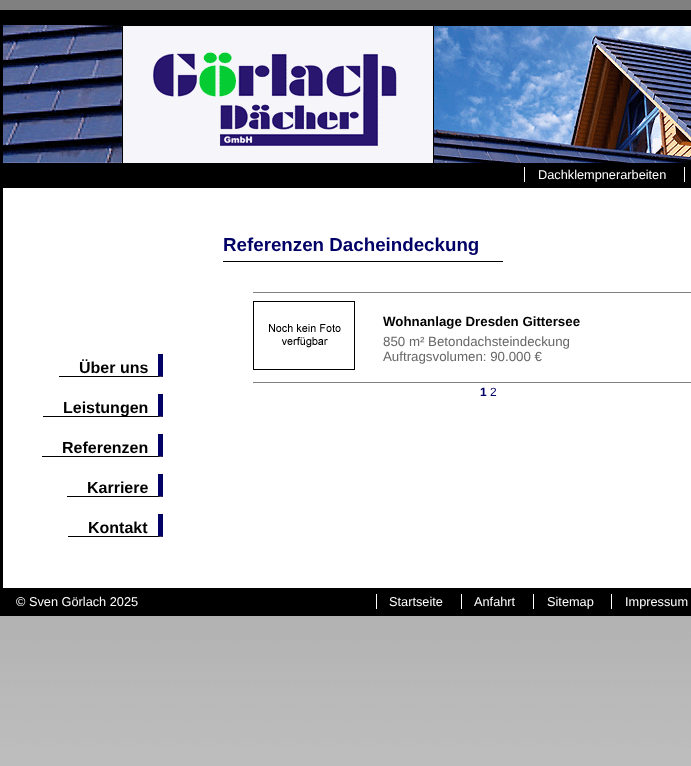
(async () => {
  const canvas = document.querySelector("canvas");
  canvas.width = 691;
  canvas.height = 766;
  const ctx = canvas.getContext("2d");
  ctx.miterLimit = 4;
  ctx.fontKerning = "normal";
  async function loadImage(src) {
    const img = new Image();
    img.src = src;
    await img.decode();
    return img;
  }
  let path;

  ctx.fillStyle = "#ffffff";
  ctx.fillRect(0, 0, 691, 766);
  ctx.drawImage(await loadImage("img/1.png"), 0, 0, 691, 766);
  ctx.strokeStyle = "#000000";
  ctx.lineWidth = 3;
  ctx.strokeRect(1.5, 11.5, 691, 603);
  ctx.drawImage(await loadImage("img/2.png"), 3, 13, 688, 150);
  for (const [x, y, w, h, color] of [
    [3, 163, 688, 25, "#000000"],
    [524, 167, 1, 15, "#ffffff"],
    [684, 167, 1, 15, "#ffffff"],
    [3, 188, 688, 400, "#ffffff"],
    [223, 261, 280, 1, "#000000"],
  ]) {
    ctx.fillStyle = color;
    ctx.fillRect(x, y, w, h);
  }
  ctx.lineWidth = 1;
  ctx.strokeRect(253.5, 301.5, 101, 68);
  ctx.drawImage(await loadImage("img/3.png"), 269, 324, 72, 24);
  ctx.fillStyle = "#808080";
  ctx.fillRect(253, 292, 438, 1);
  ctx.fillRect(253, 382, 438, 1);
  ctx.fillStyle = "#000066";
  path = new Path2D("M163 354V377L158 376V354Z");
  ctx.fill(path);
  ctx.fillStyle = "#000000";
  path = new Path2D("M163 377H59V376H158Z");
  ctx.fill(path);
  ctx.fillStyle = "#000066";
  path = new Path2D("M163 394V417L158 416V394Z");
  ctx.fill(path);
  ctx.fillStyle = "#000000";
  path = new Path2D("M163 417H43V416H158Z");
  ctx.fill(path);
  ctx.fillStyle = "#000066";
  path = new Path2D("M163 434V457L158 456V434Z");
  ctx.fill(path);
  ctx.fillStyle = "#000000";
  path = new Path2D("M163 457H42V456H158Z");
  ctx.fill(path);
  ctx.fillStyle = "#000066";
  path = new Path2D("M163 474V497L158 496V474Z");
  ctx.fill(path);
  ctx.fillStyle = "#000000";
  path = new Path2D("M163 497H67V496H158Z");
  ctx.fill(path);
  ctx.fillStyle = "#000066";
  path = new Path2D("M163 514V537L158 536V514Z");
  ctx.fill(path);
  ctx.fillStyle = "#000000";
  path = new Path2D("M163 537H68V536H158Z");
  ctx.fill(path);
  for (const [x, y, w, h, color] of [
    [3, 588, 688, 25, "#000000"],
    [376, 594, 1, 15, "#ffffff"],
    [461, 594, 1, 15, "#ffffff"],
    [533, 594, 1, 15, "#ffffff"],
    [611, 594, 1, 15, "#ffffff"],
  ]) {
    ctx.fillStyle = color;
    ctx.fillRect(x, y, w, h);
  }
  ctx.font = "12.75px Liberation Sans";
  ctx.fillText("Dachklempnerarbeiten", 538, 179);
  ctx.font = "bold 18.75px Liberation Sans";
  ctx.fillStyle = "#000066";
  ctx.fillText("Referenzen Dacheindeckung", 223, 251);
  ctx.font = "bold 13.3px Liberation Sans";
  ctx.fillStyle = "#000000";
  ctx.fillText("Wohnanlage Dresden Gittersee", 383, 326);
  ctx.font = "13.3px Liberation Sans";
  ctx.fillStyle = "#666666";
  ctx.fillText("850 m² Betondachsteindeckung", 383, 346);
  ctx.fillText("Auftragsvolumen: 90.000 €", 383, 361);
  ctx.font = "bold 12px Liberation Sans";
  ctx.fillStyle = "#000066";
  ctx.fillText("1", 480, 396);
  ctx.font = "12px Liberation Sans";
  ctx.fillText("2", 490, 396);
  ctx.font = "bold 16px Liberation Sans";
  ctx.fillStyle = "#000000";
  for (const [text, x, y] of [
    ["Über uns", 79, 373],
    ["Leistungen", 63, 413],
    ["Referenzen", 62, 453],
    ["Karriere", 87, 493],
    ["Kontakt", 88, 533],
  ]) {
    ctx.fillText(text, x, y);
  }
  ctx.font = "12.75px Liberation Sans";
  ctx.fillStyle = "#ffffff";
  for (const [text, x, y] of [
    ["© Sven Görlach 2025", 16, 606],
    ["Startseite", 389, 606],
    ["Anfahrt", 474, 606],
    ["Sitemap", 547, 606],
    ["Impressum", 625, 606],
  ]) {
    ctx.fillText(text, x, y);
  }
})();
